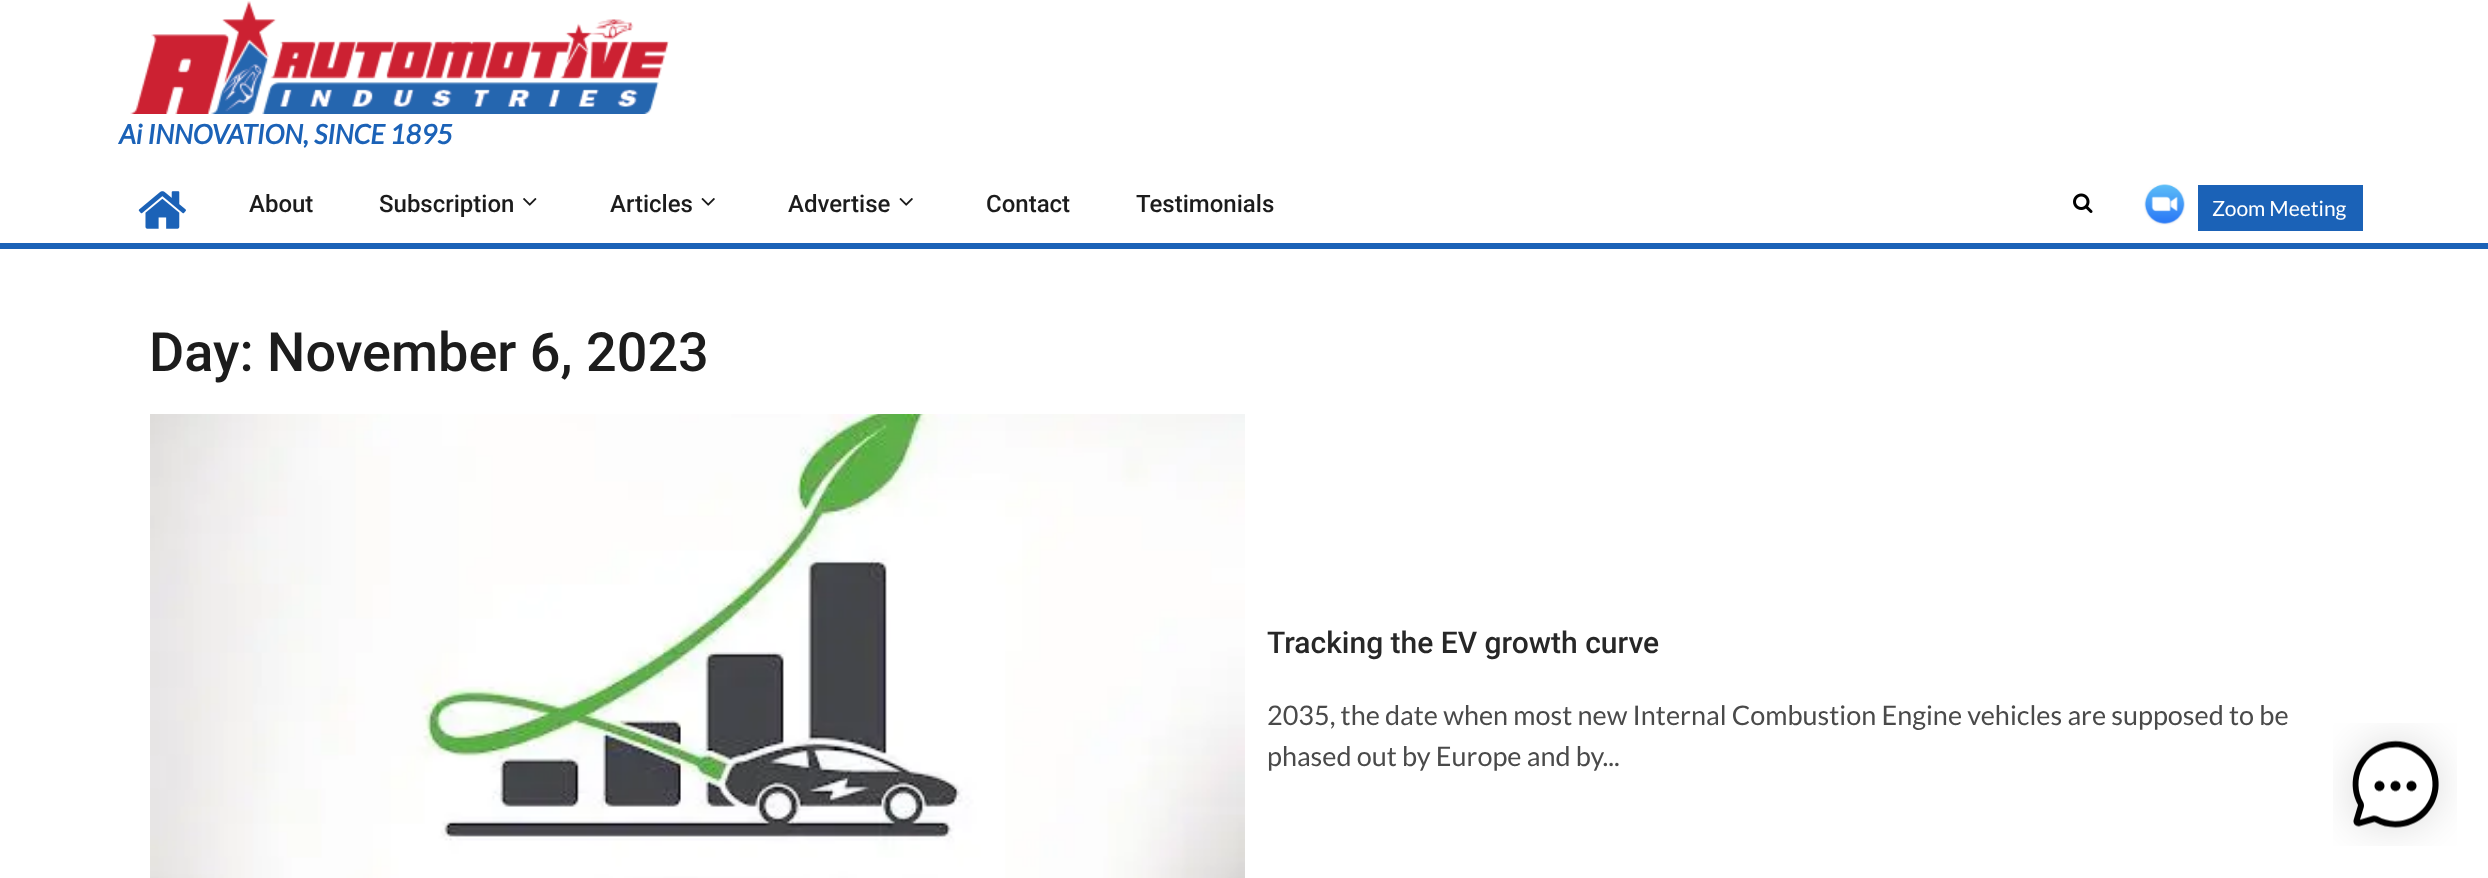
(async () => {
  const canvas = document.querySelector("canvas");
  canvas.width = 2488;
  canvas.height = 878;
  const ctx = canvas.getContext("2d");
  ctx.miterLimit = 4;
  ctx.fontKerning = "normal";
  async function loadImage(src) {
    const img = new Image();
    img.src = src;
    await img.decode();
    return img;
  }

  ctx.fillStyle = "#ffffff";
  ctx.fillRect(0, 0, 2488, 878);
  ctx.drawImage(await loadImage("img/1.png"), 130, 1, 539, 113);
  ctx.fillStyle = "#1b62b7";
  ctx.fillRect(0, 243, 2488, 6);
  ctx.drawImage(await loadImage("img/2.png"), 138, 191, 48, 38);
  ctx.drawImage(await loadImage("img/3.png"), 523, 198, 14, 8);
  ctx.drawImage(await loadImage("img/4.png"), 701, 198, 14, 8);
  ctx.drawImage(await loadImage("img/4.png"), 899, 198, 14, 8);
  ctx.drawImage(await loadImage("img/5.png"), 2073, 193, 20, 20);
  ctx.drawImage(await loadImage("img/6.png"), 2144, 184, 41, 41);
  ctx.fillRect(2198, 185, 165, 46);
  ctx.drawImage(await loadImage("img/7.png"), 150, 414, 1095, 464);
  ctx.drawImage(await loadImage("img/8.png"), 2333, 723, 124, 123);
  ctx.font = "italic bold 27px Lato";
  ctx.fillText("Ai INNOVATION, SINCE 1895", 119, 144);
  ctx.font = "500 24px Roboto";
  ctx.fillStyle = "#1c1c1c";
  for (const [text, x, y] of [
    ["About", 249, 212],
    ["Subscription", 379, 212],
    ["Articles", 610, 212],
    ["Advertise", 788, 212],
    ["Contact", 986, 212],
    ["Testimonials", 1136, 212],
  ]) {
    ctx.fillText(text, x, y);
  }
  ctx.font = "21px Lato";
  ctx.fillStyle = "#ffffff";
  ctx.fillText("Zoom Meeting", 2212, 216);
  ctx.font = "500 54px Roboto";
  ctx.fillStyle = "#1c1c1c";
  ctx.fillText("Day: November 6, 2023", 149, 371);
  ctx.font = "500 30px Roboto";
  ctx.fillStyle = "#272727";
  ctx.fillText("Tracking the EV growth curve", 1267, 653);
  ctx.font = "27px Lato";
  ctx.fillStyle = "#4a4a4a";
  ctx.fillText("2035, the date when most new Internal Combustion Engine vehicles are supposed to be", 1267, 725);
  ctx.fillText("phased out by Europe and by...", 1267, 766);
})();
